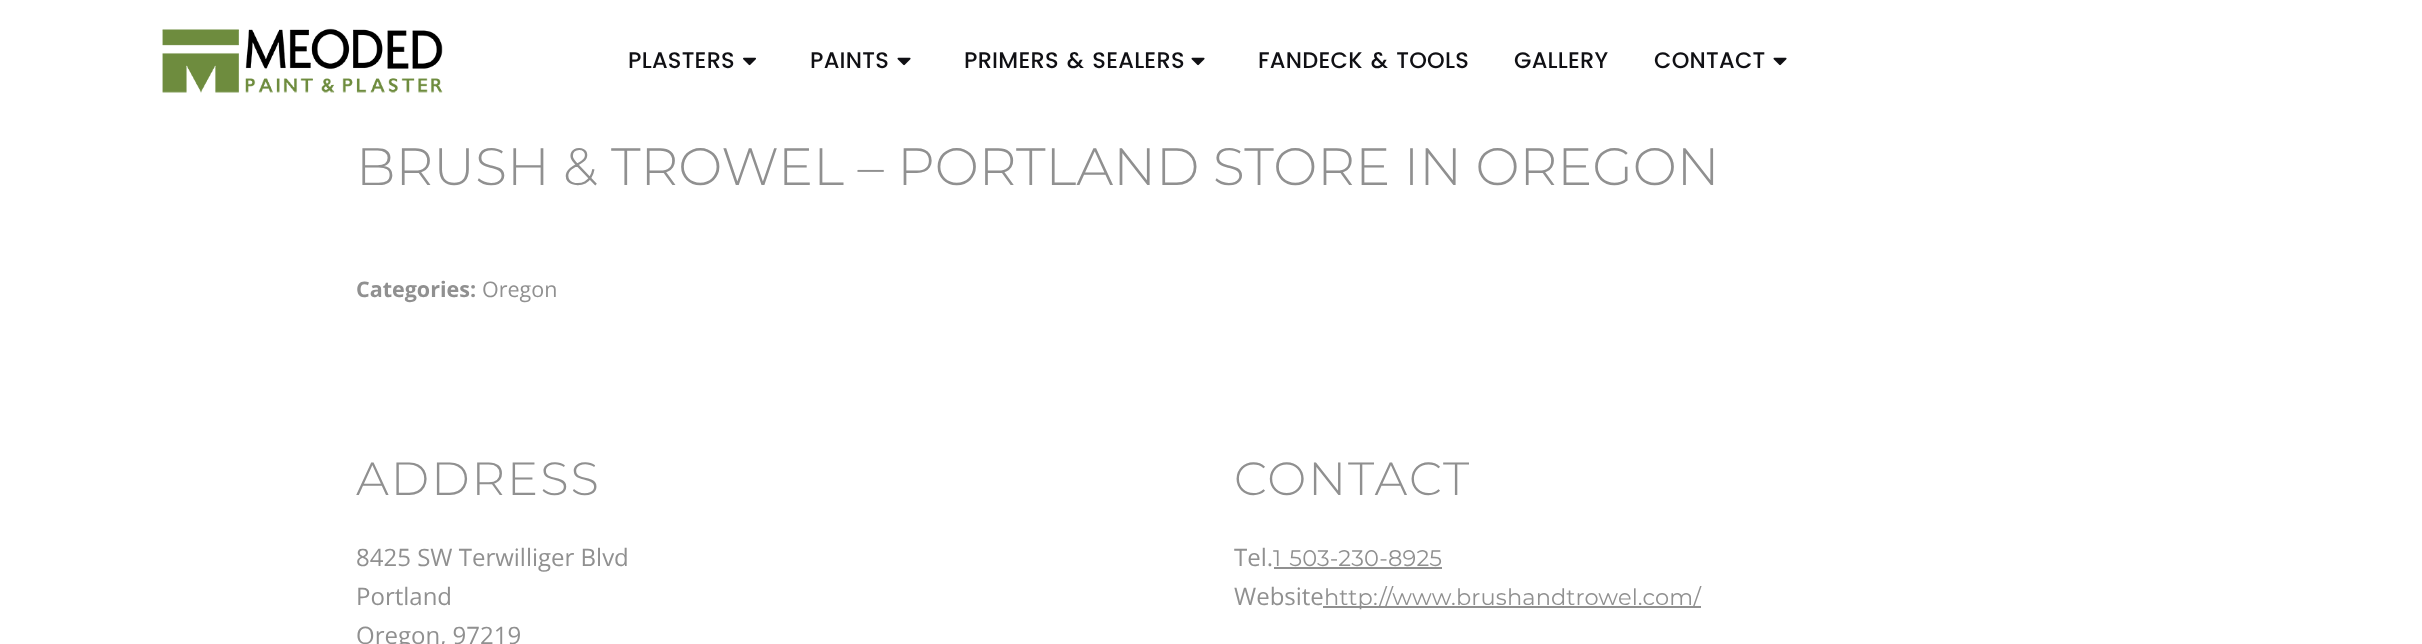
(async () => {
  const canvas = document.querySelector("canvas");
  canvas.width = 2422;
  canvas.height = 644;
  const ctx = canvas.getContext("2d");
  ctx.miterLimit = 4;
  ctx.fontKerning = "normal";
  async function loadImage(src) {
    const img = new Image();
    img.src = src;
    await img.decode();
    return img;
  }

  ctx.fillStyle = "#ffffff";
  ctx.fillRect(0, 0, 2422, 644);
  ctx.drawImage(await loadImage("img/1.png"), 162, 28, 281, 65);
  ctx.drawImage(await loadImage("img/2.png"), 743, 57, 13, 9);
  ctx.drawImage(await loadImage("img/3.png"), 897, 57, 14, 9);
  ctx.drawImage(await loadImage("img/3.png"), 1191, 57, 14, 9);
  ctx.drawImage(await loadImage("img/3.png"), 1773, 57, 14, 9);
  ctx.fillStyle = "#909090";
  ctx.fillRect(1274, 567, 168, 2);
  ctx.fillRect(1323, 606, 378, 2);
  ctx.letterSpacing = "0.25px";
  ctx.font = "500 22.5px Poppins";
  ctx.fillStyle = "#101014";
  ctx.fillText("PLASTERS", 628, 68);
  ctx.fillText("PAINTS", 810, 68);
  ctx.wordSpacing = "2px";
  ctx.fillText("PRIMERS & SEALERS", 964, 68);
  ctx.fillText("FANDECK & TOOLS", 1258, 68);
  ctx.wordSpacing = "0px";
  ctx.fillText("GALLERY", 1514, 68);
  ctx.fillText("CONTACT", 1654, 68);
  ctx.letterSpacing = "0px";
  ctx.font = "300 52.5px Montserrat";
  ctx.fillStyle = "#909090";
  ctx.fillText("BRUSH & TROWEL – PORTLAND STORE IN OREGON", 356, 185);
  ctx.font = "bold 21.5px Open Sans";
  ctx.fillText("Categories:", 356, 297);
  ctx.font = "21.5px Open Sans";
  ctx.fillText("Oregon", 482, 297);
  ctx.letterSpacing = "2px";
  ctx.font = "300 46.5px Montserrat";
  ctx.fillText("ADDRESS", 356, 495);
  ctx.letterSpacing = "0px";
  ctx.font = "24px Open Sans";
  for (const [text, x, y] of [
    ["8425 SW Terwilliger Blvd", 356, 566],
    ["Portland", 356, 605],
    ["Oregon, 97219", 356, 644],
  ]) {
    ctx.fillText(text, x, y);
  }
  ctx.letterSpacing = "2px";
  ctx.font = "300 46.5px Montserrat";
  ctx.fillText("CONTACT", 1234, 495);
  ctx.letterSpacing = "0px";
  ctx.font = "24px Open Sans";
  ctx.fillText("Tel.", 1234, 566);
  ctx.letterSpacing = "0.15px";
  ctx.wordSpacing = "2px";
  ctx.font = "22.5px Montserrat";
  ctx.fillText("1 503-230-8925", 1273, 566);
  ctx.letterSpacing = "0px";
  ctx.wordSpacing = "0px";
  ctx.font = "24px Open Sans";
  ctx.fillText("Website", 1234, 605);
  ctx.letterSpacing = "0.15px";
  ctx.font = "22.5px Montserrat";
  ctx.fillText("http://www.brushandtrowel.com/", 1324, 605);
})();
